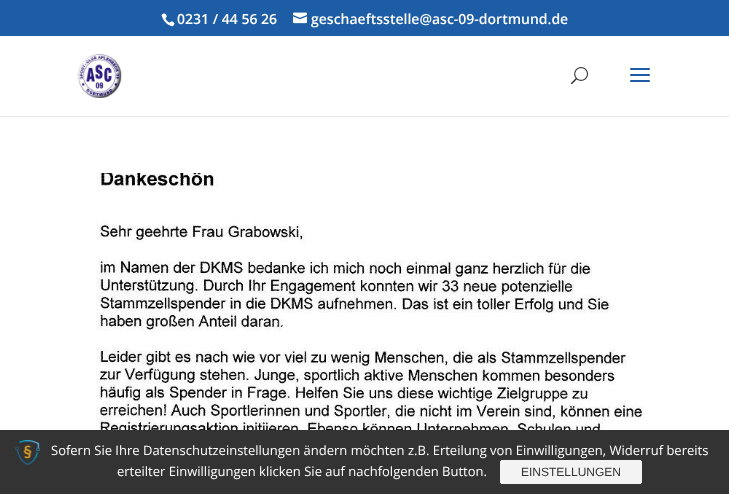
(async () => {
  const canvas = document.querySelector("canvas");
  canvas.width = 729;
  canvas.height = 494;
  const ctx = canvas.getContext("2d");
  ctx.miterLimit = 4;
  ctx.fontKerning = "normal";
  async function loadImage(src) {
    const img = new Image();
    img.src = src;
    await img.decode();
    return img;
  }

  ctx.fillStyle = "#ffffff";
  ctx.fillRect(0, 0, 729, 494);
  ctx.fillStyle = "#1d5da5";
  ctx.fillRect(0, 0, 729, 36);
  ctx.drawImage(await loadImage("img/1.png"), 161, 13, 14, 14);
  ctx.drawImage(await loadImage("img/2.png"), 293, 12, 14, 12);
  ctx.fillStyle = "#e6e6e6";
  ctx.fillRect(0, 116, 729, 1);
  ctx.drawImage(await loadImage("img/3.png"), 77, 54, 45, 44);
  ctx.drawImage(await loadImage("img/4.png"), 571, 67, 17, 18);
  ctx.drawImage(await loadImage("img/5.png"), 630, 68, 20, 14);
  ctx.drawImage(await loadImage("img/6.png"), 96, 173, 548, 257);
  ctx.fillStyle = "#333333";
  ctx.fillRect(0, 430, 729, 64);
  ctx.drawImage(await loadImage("img/7.png"), 15, 440, 25, 25);
  ctx.fillStyle = "#f3f3f3";
  ctx.beginPath();
  ctx.roundRect(500.5, 460.5, 141, 23, 1.5);
  ctx.fill();
  ctx.strokeStyle = "#f3f3f3";
  ctx.stroke();
  ctx.font = "600 14px Open Sans";
  ctx.fillStyle = "#ffffff";
  ctx.fillText("0231 / 44 56 26", 177, 24);
  ctx.fillText("geschaeftsstelle@asc-09-dortmund.de", 311, 24);
  ctx.font = "13px Open Sans";
  ctx.fillText("Sofern Sie Ihre Datenschutzeinstellungen ändern möchten z.B. Erteilung von Einwilligungen, Widerruf bereits", 51, 455);
  ctx.fillText("erteilter Einwilligungen klicken Sie auf nachfolgenden Button.", 117, 476);
  ctx.font = "12px Liberation Sans";
  ctx.fillStyle = "#333333";
  ctx.fillText("EINSTELLUNGEN", 521, 476);
})();
